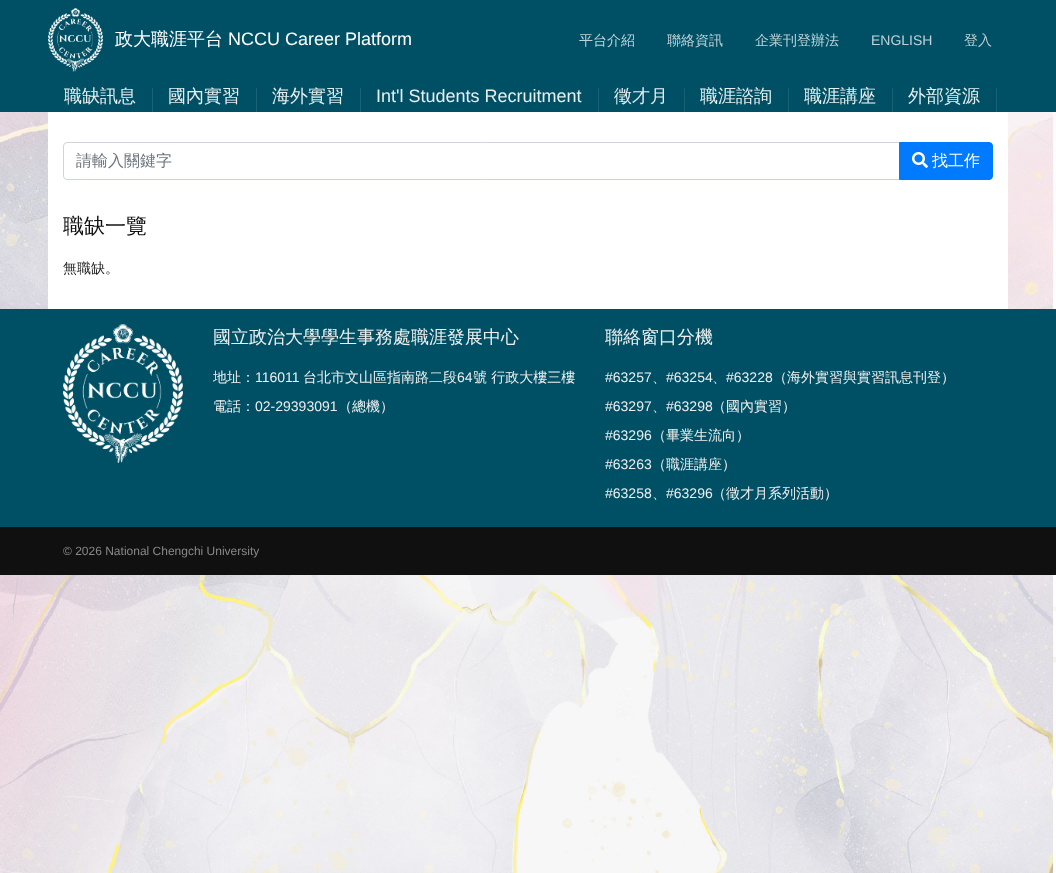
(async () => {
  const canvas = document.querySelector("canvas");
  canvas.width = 1056;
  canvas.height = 873;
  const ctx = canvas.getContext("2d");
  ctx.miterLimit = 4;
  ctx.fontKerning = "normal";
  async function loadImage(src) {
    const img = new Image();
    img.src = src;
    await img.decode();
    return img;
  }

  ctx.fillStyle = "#ffffff";
  ctx.fillRect(0, 0, 1056, 873);
  ctx.drawImage(await loadImage("img/1.png"), 0, 112, 1056, 761);
  ctx.fillStyle = "#005065";
  ctx.fillRect(0, 0, 1056, 112);
  ctx.drawImage(await loadImage("img/2.png"), 48, 8, 55, 64);
  for (const [x, y, w, h, color] of [
    [48, 112, 960, 197, "#ffffff"],
    [152, 88, 1, 32, "rgba(255, 255, 255, 0.1)"],
    [256, 88, 1, 32, "rgba(255, 255, 255, 0.1)"],
    [360, 88, 1, 32, "rgba(255, 255, 255, 0.1)"],
    [598, 88, 1, 32, "rgba(255, 255, 255, 0.1)"],
    [684, 88, 1, 32, "rgba(255, 255, 255, 0.1)"],
    [788, 88, 1, 32, "rgba(255, 255, 255, 0.1)"],
    [892, 88, 1, 32, "rgba(255, 255, 255, 0.1)"],
    [996, 88, 1, 32, "rgba(255, 255, 255, 0.1)"],
  ]) {
    ctx.fillStyle = color;
    ctx.fillRect(x, y, w, h);
  }
  ctx.beginPath();
  ctx.roundRect(63.5, 142.5, 836, 37, [3.5, 0, 0, 3.5]);
  ctx.strokeStyle = "#ced4da";
  ctx.stroke();
  ctx.fillStyle = "#007bff";
  ctx.beginPath();
  ctx.roundRect(899.5, 142.5, 93, 37, [0, 3.5, 3.5, 0]);
  ctx.fill();
  ctx.strokeStyle = "#007bff";
  ctx.stroke();
  ctx.drawImage(await loadImage("img/3.png"), 912, 152, 16, 16);
  ctx.fillStyle = "#005065";
  ctx.fillRect(0, 309, 1056, 218);
  ctx.drawImage(await loadImage("img/4.png"), 63, 324, 120, 139);
  ctx.fillStyle = "#101010";
  ctx.fillRect(0, 527, 1056, 48);
  ctx.font = "500 18px WenQuanYi Zen Hei";
  ctx.fillStyle = "#ffffff";
  ctx.fillText("政大職涯平台", 115, 45);
  ctx.font = "18px Liberation Sans";
  ctx.fillText("NCCU Career Platform", 228, 45);
  ctx.font = "500 14px WenQuanYi Zen Hei";
  ctx.fillStyle = "#bfd3d9";
  for (const [text, x, y] of [
    ["平台介紹", 579, 45],
    ["聯絡資訊", 667, 45],
    ["企業刊登辦法", 755, 45],
  ]) {
    ctx.fillText(text, x, y);
  }
  ctx.font = "14px Liberation Sans";
  ctx.fillText("ENGLISH", 871, 45);
  ctx.font = "500 14px WenQuanYi Zen Hei";
  ctx.fillText("登入", 964, 45);
  ctx.font = "500 18px WenQuanYi Zen Hei";
  ctx.fillStyle = "#e6eef0";
  for (const [text, x, y] of [
    ["職缺訊息", 64, 102],
    ["國內實習", 168, 102],
    ["海外實習", 272, 102],
  ]) {
    ctx.fillText(text, x, y);
  }
  ctx.font = "18px Liberation Sans";
  ctx.fillText("Int'l Students Recruitment", 376, 102);
  ctx.font = "500 18px WenQuanYi Zen Hei";
  for (const [text, x, y] of [
    ["徵才月", 614, 102],
    ["職涯諮詢", 700, 102],
    ["職涯講座", 804, 102],
    ["外部資源", 908, 102],
  ]) {
    ctx.fillText(text, x, y);
  }
  ctx.font = "500 16px WenQuanYi Zen Hei";
  ctx.fillStyle = "#6c757d";
  ctx.fillText("請輸入關鍵字", 76, 166);
  ctx.fillStyle = "#ffffff";
  ctx.fillText("找工作", 932, 166);
  ctx.font = "500 21px WenQuanYi Zen Hei";
  ctx.fillStyle = "#101010";
  ctx.fillText("職缺一覽", 63, 233);
  ctx.font = "500 14px WenQuanYi Zen Hei";
  ctx.fillStyle = "#202020";
  ctx.fillText("無職缺。", 63, 273);
  ctx.font = "500 18px WenQuanYi Zen Hei";
  ctx.fillStyle = "#eeeeee";
  ctx.fillText("國立政治大學學生事務處職涯發展中心", 213, 343);
  ctx.font = "500 14px WenQuanYi Zen Hei";
  ctx.fillText("地址：", 213, 382);
  ctx.font = "14px Liberation Sans";
  ctx.fillText("116011", 255, 382);
  ctx.font = "500 14px WenQuanYi Zen Hei";
  ctx.fillText("台北市文山區指南路二段", 303, 382);
  ctx.font = "14px Liberation Sans";
  ctx.fillText("64", 457, 382);
  ctx.font = "500 14px WenQuanYi Zen Hei";
  ctx.fillText("號 行政大樓三樓", 473, 382);
  ctx.fillText("電話：", 213, 411);
  ctx.font = "14px Liberation Sans";
  ctx.fillText("02-29393091", 255, 411);
  ctx.font = "500 14px WenQuanYi Zen Hei";
  ctx.fillText("（總機）", 338, 411);
  ctx.font = "500 18px WenQuanYi Zen Hei";
  ctx.fillText("聯絡窗口分機", 605, 343);
  ctx.font = "14px Liberation Sans";
  ctx.fillText("#63257", 605, 382);
  ctx.font = "500 14px WenQuanYi Zen Hei";
  ctx.fillText("、", 652, 382);
  ctx.font = "14px Liberation Sans";
  ctx.fillText("#63254", 666, 382);
  ctx.font = "500 14px WenQuanYi Zen Hei";
  ctx.fillText("、", 712, 382);
  ctx.font = "14px Liberation Sans";
  ctx.fillText("#63228", 726, 382);
  ctx.font = "500 14px WenQuanYi Zen Hei";
  ctx.fillText("（海外實習與實習訊息刊登）", 773, 382);
  ctx.font = "14px Liberation Sans";
  ctx.fillText("#63297", 605, 411);
  ctx.font = "500 14px WenQuanYi Zen Hei";
  ctx.fillText("、", 652, 411);
  ctx.font = "14px Liberation Sans";
  ctx.fillText("#63298", 666, 411);
  ctx.font = "500 14px WenQuanYi Zen Hei";
  ctx.fillText("（國內實習）", 712, 411);
  ctx.font = "14px Liberation Sans";
  ctx.fillText("#63296", 605, 440);
  ctx.font = "500 14px WenQuanYi Zen Hei";
  ctx.fillText("（畢業生流向）", 652, 440);
  ctx.font = "14px Liberation Sans";
  ctx.fillText("#63263", 605, 469);
  ctx.font = "500 14px WenQuanYi Zen Hei";
  ctx.fillText("（職涯講座）", 652, 469);
  ctx.font = "14px Liberation Sans";
  ctx.fillText("#63258", 605, 498);
  ctx.font = "500 14px WenQuanYi Zen Hei";
  ctx.fillText("、", 652, 498);
  ctx.font = "14px Liberation Sans";
  ctx.fillText("#63296", 666, 498);
  ctx.font = "500 14px WenQuanYi Zen Hei";
  ctx.fillText("（徵才月系列活動）", 712, 498);
  ctx.font = "12px Liberation Sans";
  ctx.fillStyle = "#888888";
  ctx.fillText("© 2026 National Chengchi University", 63, 555);
})();
